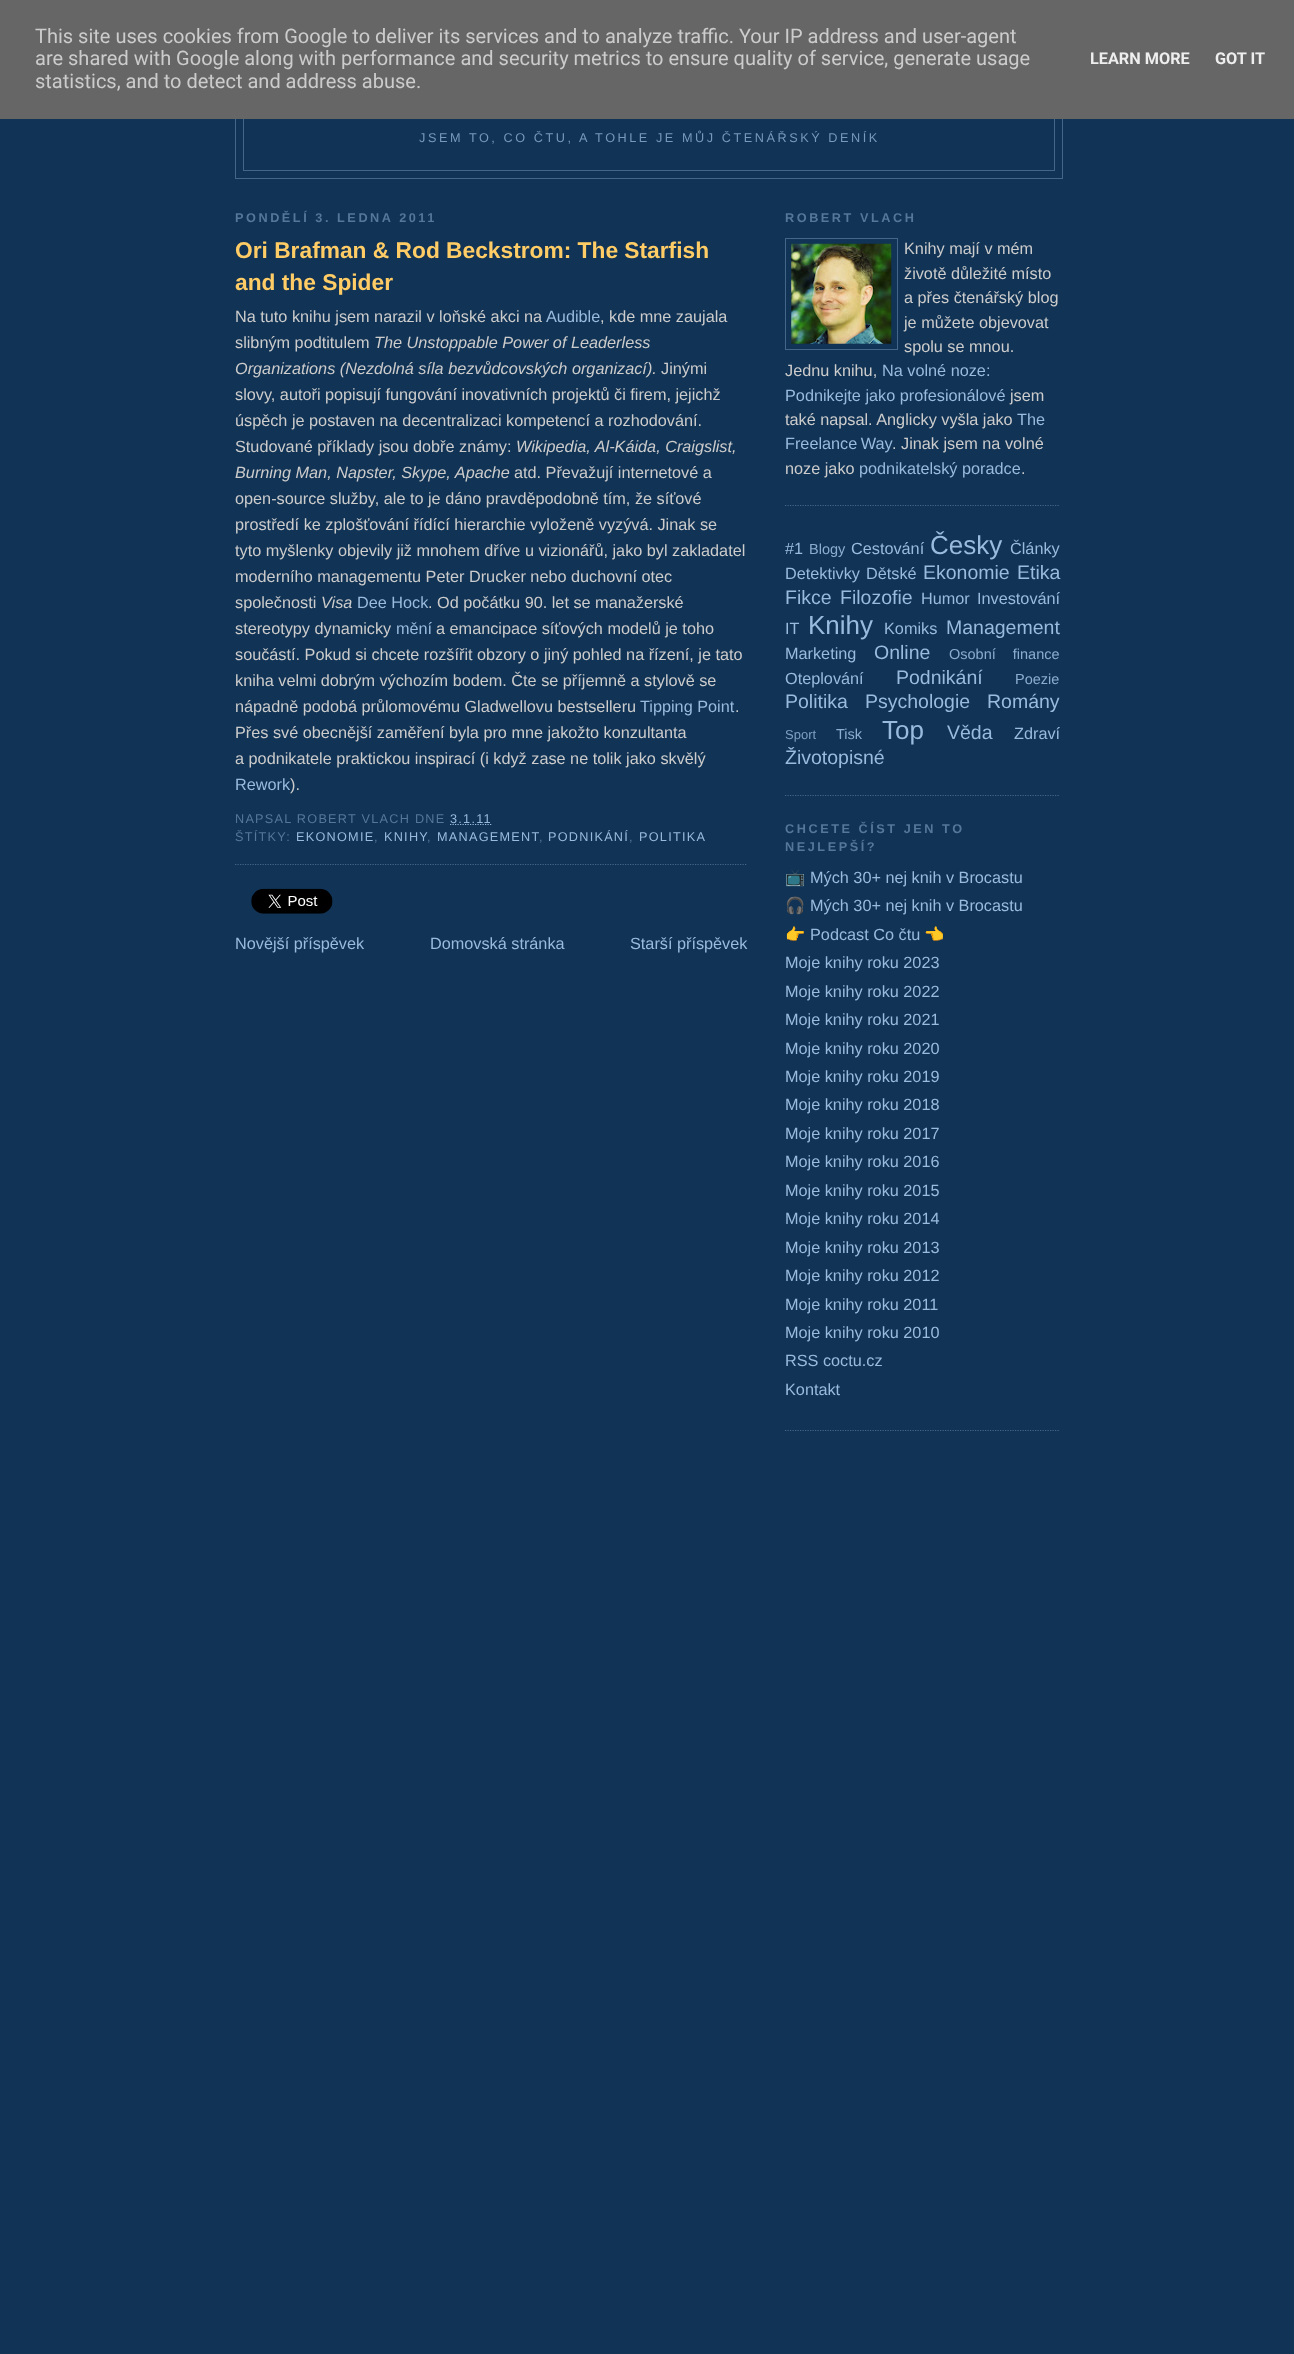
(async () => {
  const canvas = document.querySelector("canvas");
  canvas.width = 1294;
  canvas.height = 2354;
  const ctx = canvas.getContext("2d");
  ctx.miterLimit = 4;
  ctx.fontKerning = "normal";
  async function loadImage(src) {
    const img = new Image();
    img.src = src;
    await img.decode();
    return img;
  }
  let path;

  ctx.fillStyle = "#113355";
  ctx.fillRect(0, 0, 1294, 2354);
  ctx.strokeStyle = "#446688";
  ctx.strokeRect(235.5, 50.5, 827, 128);
  ctx.strokeRect(243.5, 58.5, 811, 112);
  ctx.fillStyle = "#666666";
  ctx.fillRect(0, 0, 1294, 119);
  path = new Path2D("M235 864.5H747.5");
  ctx.lineWidth = 1.2;
  ctx.setLineDash([1.25, 1.25]);
  ctx.stroke(path);
  path = new Path2D("M450 824.5H492");
  ctx.strokeStyle = "#99bbdd";
  ctx.stroke(path);
  ctx.drawImage(await loadImage("img/1.png"), 251, 888, 82, 26);
  path = new Path2D("M785 505.5H1060");
  ctx.strokeStyle = "#446688";
  ctx.stroke(path);
  ctx.lineWidth = 1;
  ctx.setLineDash([]);
  ctx.strokeRect(785.5, 238.5, 112, 111);
  ctx.drawImage(await loadImage("img/2.png"), 791, 243, 101, 101);
  path = new Path2D("M785 795.5H1060");
  ctx.lineWidth = 1.2;
  ctx.setLineDash([1.25, 1.25]);
  ctx.stroke(path);
  path = new Path2D("M785 1430.5H1060");
  ctx.stroke(path);
  ctx.font = "20px Roboto";
  ctx.fillStyle = "#cccccc";
  for (const [text, x, y] of [
    ["This site uses cookies from Google to deliver its services and to analyze traffic. Your IP address and user-agent", 35, 43],
    ["are shared with Google along with performance and security metrics to ensure quality of service, generate usage", 35, 65],
    ["statistics, and to detect and address abuse.", 35, 88],
  ]) {
    ctx.fillText(text, x, y);
  }
  ctx.font = "bold 16.25px Roboto";
  ctx.fillStyle = "#eeeeee";
  ctx.fillText("LEARN MORE", 1090, 64);
  ctx.fillText("GOT IT", 1215, 64);
  ctx.letterSpacing = "2.55px";
  ctx.font = "12.7px Liberation Sans";
  ctx.fillStyle = "#7799bb";
  ctx.fillText("JSEM TO, CO ČTU, A TOHLE JE MŮJ ČTENÁŘSKÝ DENÍK", 419, 142);
  ctx.font = "bold 12.7px Liberation Sans";
  ctx.fillStyle = "#557799";
  ctx.fillText("PONDĚLÍ 3. LEDNA 2011", 235, 222);
  ctx.letterSpacing = "0px";
  ctx.font = "bold 22.75px Liberation Sans";
  ctx.fillStyle = "#ffcc66";
  ctx.fillText("Ori Brafman & Rod Beckstrom: The Starfish", 235, 258);
  ctx.fillText("and the Spider", 235, 290);
  ctx.font = "16.25px Liberation Sans";
  ctx.fillStyle = "#cccccc";
  ctx.fillText("Na tuto knihu jsem narazil v loňské akci na", 235, 322);
  ctx.fillStyle = "#99bbdd";
  ctx.fillText("Audible", 546, 322);
  ctx.fillStyle = "#cccccc";
  ctx.fillText(", kde mne zaujala", 600, 322);
  ctx.fillText("slibným podtitulem", 235, 348);
  ctx.font = "italic 16.25px Liberation Sans";
  ctx.fillText("The Unstoppable Power of Leaderless", 374, 348);
  ctx.fillText("Organizations (Nezdolná síla bezvůdcovských organizací).", 235, 374);
  ctx.font = "16.25px Liberation Sans";
  for (const [text, x, y] of [
    ["Jinými", 661, 374],
    ["slovy, autoři popisují fungování inovativních projektů či firem, jejichž", 235, 400],
    ["úspěch je postaven na decentralizaci kompetencí a rozhodování.", 235, 426],
    ["Studované příklady jsou dobře známy:", 235, 452],
  ]) {
    ctx.fillText(text, x, y);
  }
  ctx.font = "italic 16.25px Liberation Sans";
  ctx.fillText("Wikipedia, Al-Káida, Craigslist,", 516, 452);
  ctx.fillText("Burning Man, Napster, Skype, Apache", 235, 478);
  ctx.font = "16.25px Liberation Sans";
  for (const [text, x, y] of [
    ["atd. Převažují internetové a", 514, 478],
    ["open-source služby, ale to je dáno pravděpodobně tím, že síťové", 235, 504],
    ["prostředí ke zplošťování řídící hierarchie vyloženě vyzývá. Jinak se", 235, 530],
    ["tyto myšlenky objevily již mnohem dříve u vizionářů, jako byl zakladatel", 235, 556],
    ["moderního managementu Peter Drucker nebo duchovní otec", 235, 582],
    ["společnosti", 235, 608],
  ]) {
    ctx.fillText(text, x, y);
  }
  ctx.font = "italic 16.25px Liberation Sans";
  ctx.fillText("Visa", 321, 608);
  ctx.font = "16.25px Liberation Sans";
  ctx.fillStyle = "#99bbdd";
  ctx.fillText("Dee Hock", 357, 608);
  ctx.fillStyle = "#cccccc";
  ctx.fillText(". Od počátku 90. let se manažerské", 428, 608);
  ctx.fillText("stereotypy dynamicky", 235, 634);
  ctx.fillStyle = "#99bbdd";
  ctx.fillText("mění", 396, 634);
  ctx.fillStyle = "#cccccc";
  for (const [text, x, y] of [
    ["a emancipace síťových modelů je toho", 436, 634],
    ["součástí. Pokud si chcete rozšířit obzory o jiný pohled na řízení, je tato", 235, 660],
    ["kniha velmi dobrým výchozím bodem. Čte se příjemně a stylově se", 235, 686],
    ["nápadně podobá průlomovému Gladwellovu bestselleru", 235, 712],
  ]) {
    ctx.fillText(text, x, y);
  }
  ctx.fillStyle = "#99bbdd";
  ctx.fillText("Tipping Point", 640, 712);
  ctx.fillStyle = "#cccccc";
  for (const [text, x, y] of [
    [".", 735, 712],
    ["Přes své obecnější zaměření byla pro mne jakožto konzultanta", 235, 738],
    ["a podnikatele praktickou inspirací (i když zase ne tolik jako skvělý", 235, 764],
  ]) {
    ctx.fillText(text, x, y);
  }
  ctx.fillStyle = "#99bbdd";
  ctx.fillText("Rework", 235, 790);
  ctx.fillStyle = "#cccccc";
  ctx.fillText(").", 290, 790);
  ctx.letterSpacing = "1.25px";
  ctx.font = "12.7px Liberation Sans";
  ctx.fillStyle = "#557799";
  ctx.fillText("NAPSAL ROBERT VLACH DNE", 235, 823);
  ctx.fillStyle = "#99bbdd";
  ctx.fillText("3.1.11", 450, 823);
  ctx.fillStyle = "#557799";
  ctx.fillText("ŠTÍTKY:", 235, 841);
  ctx.fillStyle = "#99bbdd";
  ctx.fillText("EKONOMIE", 296, 841);
  ctx.fillStyle = "#557799";
  ctx.fillText(",", 374, 841);
  ctx.fillStyle = "#99bbdd";
  ctx.fillText("KNIHY", 384, 841);
  ctx.fillStyle = "#557799";
  ctx.fillText(",", 427, 841);
  ctx.fillStyle = "#99bbdd";
  ctx.fillText("MANAGEMENT", 437, 841);
  ctx.fillStyle = "#557799";
  ctx.fillText(",", 539, 841);
  ctx.fillStyle = "#99bbdd";
  ctx.fillText("PODNIKÁNÍ", 548, 841);
  ctx.fillStyle = "#557799";
  ctx.fillText(",", 629, 841);
  ctx.fillStyle = "#99bbdd";
  ctx.fillText("POLITIKA", 639, 841);
  ctx.letterSpacing = "0px";
  ctx.font = "16.25px Liberation Sans";
  for (const [text, x, y] of [
    ["Novější příspěvek", 235, 949],
    ["Domovská stránka", 430, 949],
    ["Starší příspěvek", 630, 949],
  ]) {
    ctx.fillText(text, x, y);
  }
  ctx.letterSpacing = "2.55px";
  ctx.font = "bold 12.7px Liberation Sans";
  ctx.fillStyle = "#557799";
  ctx.fillText("ROBERT VLACH", 785, 222);
  ctx.letterSpacing = "0px";
  ctx.font = "16.25px Liberation Sans";
  ctx.fillStyle = "#cccccc";
  for (const [text, x, y] of [
    ["Knihy mají v mém", 904, 254],
    ["životě důležité místo", 904, 279],
    ["a přes čtenářský blog", 904, 303],
    ["je můžete objevovat", 904, 328],
    ["spolu se mnou.", 904, 352],
    ["Jednu knihu,", 785, 376],
  ]) {
    ctx.fillText(text, x, y);
  }
  ctx.fillStyle = "#99bbdd";
  ctx.fillText("Na volné noze:", 882, 376);
  ctx.fillText("Podnikejte jako profesionálové", 785, 401);
  ctx.fillStyle = "#cccccc";
  ctx.fillText("jsem", 1010, 401);
  ctx.fillText("také napsal. Anglicky vyšla jako", 785, 425);
  ctx.fillStyle = "#99bbdd";
  ctx.fillText("The", 1017, 425);
  ctx.wordSpacing = "-1px";
  ctx.fillText("Freelance Way", 785, 449);
  ctx.wordSpacing = "0px";
  ctx.fillStyle = "#cccccc";
  ctx.fillText(". Jinak jsem na volné", 892, 449);
  ctx.fillText("noze jako", 785, 474);
  ctx.fillStyle = "#99bbdd";
  ctx.fillText("podnikatelský poradce", 859, 474);
  ctx.fillStyle = "#cccccc";
  ctx.fillText(".", 1021, 474);
  ctx.fillStyle = "#99bbdd";
  ctx.fillText("#1", 785, 554);
  ctx.font = "14.5px Liberation Sans";
  ctx.fillStyle = "#8badcf";
  ctx.fillText("Blogy", 809, 554);
  ctx.font = "16.25px Liberation Sans";
  ctx.fillStyle = "#99bbdd";
  ctx.fillText("Cestování", 851, 554);
  ctx.font = "26px Liberation Sans";
  ctx.fillText("Česky", 930, 554);
  ctx.font = "16.25px Liberation Sans";
  for (const [text, x, y] of [
    ["Články", 1010, 554],
    ["Detektivky", 785, 579],
    ["Dětské", 866, 579],
  ]) {
    ctx.fillText(text, x, y);
  }
  ctx.font = "19.5px Liberation Sans";
  for (const [text, x, y] of [
    ["Ekonomie", 923, 579],
    ["Etika", 1017, 579],
    ["Fikce", 785, 604],
    ["Filozofie", 840, 604],
  ]) {
    ctx.fillText(text, x, y);
  }
  ctx.font = "16.25px Liberation Sans";
  for (const [text, x, y] of [
    ["Humor", 921, 604],
    ["Investování", 977, 604],
    ["IT", 785, 634],
  ]) {
    ctx.fillText(text, x, y);
  }
  ctx.font = "26px Liberation Sans";
  ctx.fillText("Knihy", 808, 634);
  ctx.font = "16.25px Liberation Sans";
  ctx.fillText("Komiks", 884, 634);
  ctx.font = "19.5px Liberation Sans";
  ctx.fillText("Management", 946, 634);
  ctx.font = "16.25px Liberation Sans";
  ctx.fillText("Marketing", 785, 659);
  ctx.font = "19.5px Liberation Sans";
  ctx.fillText("Online", 874, 659);
  ctx.wordSpacing = "13px";
  ctx.font = "14.5px Liberation Sans";
  ctx.fillStyle = "#8badcf";
  ctx.fillText("Osobní finance", 949, 659);
  ctx.wordSpacing = "0px";
  ctx.font = "16.25px Liberation Sans";
  ctx.fillStyle = "#99bbdd";
  ctx.fillText("Oteplování", 785, 684);
  ctx.font = "19.5px Liberation Sans";
  ctx.fillText("Podnikání", 896, 684);
  ctx.font = "14.5px Liberation Sans";
  ctx.fillStyle = "#8badcf";
  ctx.fillText("Poezie", 1015, 684);
  ctx.font = "19.5px Liberation Sans";
  ctx.fillStyle = "#99bbdd";
  for (const [text, x, y] of [
    ["Politika", 785, 708],
    ["Psychologie", 865, 708],
    ["Romány", 987, 708],
  ]) {
    ctx.fillText(text, x, y);
  }
  ctx.font = "13px Liberation Sans";
  ctx.fillStyle = "#7ea0c2";
  ctx.fillText("Sport", 785, 739);
  ctx.font = "14.5px Liberation Sans";
  ctx.fillStyle = "#8badcf";
  ctx.fillText("Tisk", 836, 739);
  ctx.font = "26px Liberation Sans";
  ctx.fillStyle = "#99bbdd";
  ctx.fillText("Top", 882, 739);
  ctx.font = "19.5px Liberation Sans";
  ctx.fillText("Věda", 947, 739);
  ctx.font = "16.25px Liberation Sans";
  ctx.fillText("Zdraví", 1014, 739);
  ctx.font = "19.5px Liberation Sans";
  ctx.fillText("Životopisné", 785, 764);
  ctx.letterSpacing = "2.55px";
  ctx.font = "bold 12.7px Liberation Sans";
  ctx.fillStyle = "#557799";
  ctx.fillText("CHCETE ČÍST JEN TO", 785, 833);
  ctx.fillText("NEJLEPŠÍ?", 785, 851);
  ctx.letterSpacing = "0px";
  ctx.font = "16.25px Noto Color Emoji";
  ctx.fillStyle = "#99bbdd";
  ctx.fillText("📺", 785, 883);
  ctx.font = "16.25px Liberation Sans";
  ctx.fillText("Mých 30+ nej knih v Brocastu", 810, 883);
  ctx.font = "16.25px Noto Color Emoji";
  ctx.fillText("🎧", 785, 911);
  ctx.font = "16.25px Liberation Sans";
  ctx.fillText("Mých 30+ nej knih v Brocastu", 810, 911);
  ctx.font = "16.25px Noto Color Emoji";
  ctx.fillText("👉", 785, 940);
  ctx.font = "16.25px Liberation Sans";
  ctx.fillText("Podcast Co čtu", 810, 940);
  ctx.font = "16.25px Noto Color Emoji";
  ctx.fillText("👈", 924, 940);
  ctx.font = "16.25px Liberation Sans";
  for (const [text, x, y] of [
    ["Moje knihy roku 2023", 785, 968],
    ["Moje knihy roku 2022", 785, 997],
    ["Moje knihy roku 2021", 785, 1025],
    ["Moje knihy roku 2020", 785, 1054],
    ["Moje knihy roku 2019", 785, 1082],
    ["Moje knihy roku 2018", 785, 1110],
    ["Moje knihy roku 2017", 785, 1139],
    ["Moje knihy roku 2016", 785, 1167],
    ["Moje knihy roku 2015", 785, 1196],
    ["Moje knihy roku 2014", 785, 1224],
    ["Moje knihy roku 2013", 785, 1253],
    ["Moje knihy roku 2012", 785, 1281],
    ["Moje knihy roku 2011", 785, 1310],
    ["Moje knihy roku 2010", 785, 1338],
    ["RSS coctu.cz", 785, 1366],
    ["Kontakt", 785, 1395],
  ]) {
    ctx.fillText(text, x, y);
  }
})();
